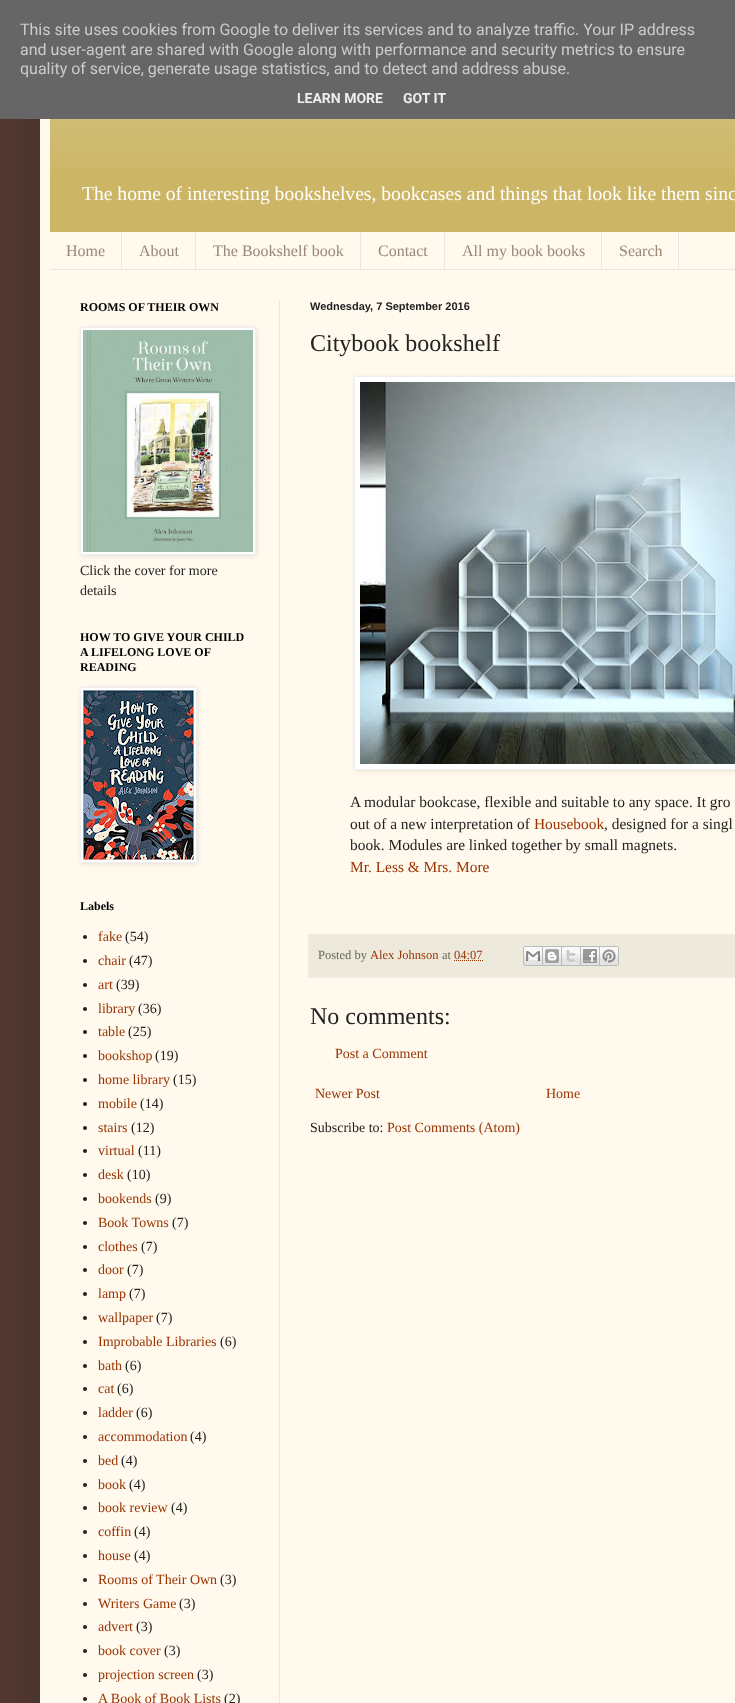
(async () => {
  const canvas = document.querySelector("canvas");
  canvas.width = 735;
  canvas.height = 1703;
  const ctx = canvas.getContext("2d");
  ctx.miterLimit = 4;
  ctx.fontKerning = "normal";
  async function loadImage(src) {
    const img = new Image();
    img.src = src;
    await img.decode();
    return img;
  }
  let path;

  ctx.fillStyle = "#513831";
  ctx.fillRect(0, 0, 735, 1703);
  ctx.fillStyle = "rgba(0, 0, 0, 0.15)";
  ctx.filter = "blur(20px)";
  ctx.beginPath();
  ctx.rect(40, 30, 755, 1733);
  ctx.fill();
  ctx.filter = "none";
  for (const [x, y, w, h, color] of [
    [0, 0, 735, 119, "#666666"],
    [40, 119, 695, 1584, "#fff9ee"],
    [50, 119, 685, 113, "#ccb666"],
  ]) {
    ctx.fillStyle = color;
    ctx.fillRect(x, y, w, h);
  }
  ctx.drawImage(await loadImage("img/1.png"), 50, 119, 685, 51);
  for (const [x, y, w, h, color] of [
    [50, 269, 685, 1, "#eee5dd"],
    [121, 232, 1, 37, "#eee5dd"],
    [195, 232, 1, 37, "#eee5dd"],
    [360, 232, 1, 37, "#eee5dd"],
    [444, 232, 1, 37, "#eee5dd"],
    [601, 232, 1, 37, "#eee5dd"],
    [678, 232, 1, 37, "#eee5dd"],
    [279, 300, 1, 1403, "#eee5dd"],
  ]) {
    ctx.fillStyle = color;
    ctx.fillRect(x, y, w, h);
  }
  ctx.fillStyle = "rgba(0, 0, 0, 0.1)";
  ctx.filter = "blur(2.5px)";
  ctx.beginPath();
  ctx.rect(81, 328, 176, 228);
  ctx.fill();
  ctx.filter = "none";
  ctx.fillStyle = "#ffffff";
  ctx.beginPath();
  ctx.rect(80.5, 327.5, 175, 227);
  ctx.fill();
  ctx.strokeStyle = "#eeeeee";
  ctx.stroke();
  ctx.drawImage(await loadImage("img/2.png"), 83, 330, 170, 222);
  ctx.fillStyle = "rgba(0, 0, 0, 0.1)";
  ctx.filter = "blur(2.5px)";
  ctx.beginPath();
  ctx.rect(81, 688, 117, 176);
  ctx.fill();
  ctx.filter = "none";
  ctx.fillStyle = "#ffffff";
  ctx.beginPath();
  ctx.rect(80.5, 687.5, 116, 175);
  ctx.fill();
  ctx.stroke();
  ctx.drawImage(await loadImage("img/3.png"), 83, 690, 111, 170);
  ctx.fillStyle = "#222222";
  ctx.beginPath();
  ctx.arc(85, 937, 2, 0, Math.PI * 2);
  ctx.fill();
  ctx.beginPath();
  ctx.arc(85, 961, 2, 0, Math.PI * 2);
  ctx.fill();
  ctx.beginPath();
  ctx.arc(85, 985, 2, 0, Math.PI * 2);
  ctx.fill();
  ctx.beginPath();
  ctx.arc(85, 1009, 2, 0, Math.PI * 2);
  ctx.fill();
  ctx.beginPath();
  ctx.arc(85, 1032, 2, 0, Math.PI * 2);
  ctx.fill();
  ctx.beginPath();
  ctx.arc(85, 1056, 2, 0, Math.PI * 2);
  ctx.fill();
  ctx.beginPath();
  ctx.arc(85, 1080, 2, 0, Math.PI * 2);
  ctx.fill();
  ctx.beginPath();
  ctx.arc(85, 1104, 2, 0, Math.PI * 2);
  ctx.fill();
  ctx.beginPath();
  ctx.arc(85, 1128, 2, 0, Math.PI * 2);
  ctx.fill();
  ctx.beginPath();
  ctx.arc(85, 1151, 2, 0, Math.PI * 2);
  ctx.fill();
  ctx.beginPath();
  ctx.arc(85, 1175, 2, 0, Math.PI * 2);
  ctx.fill();
  ctx.beginPath();
  ctx.arc(85, 1199, 2, 0, Math.PI * 2);
  ctx.fill();
  ctx.beginPath();
  ctx.arc(85, 1223, 2, 0, Math.PI * 2);
  ctx.fill();
  ctx.beginPath();
  ctx.arc(85, 1247, 2, 0, Math.PI * 2);
  ctx.fill();
  ctx.beginPath();
  ctx.arc(85, 1270, 2, 0, Math.PI * 2);
  ctx.fill();
  ctx.beginPath();
  ctx.arc(85, 1294, 2, 0, Math.PI * 2);
  ctx.fill();
  ctx.beginPath();
  ctx.arc(85, 1318, 2, 0, Math.PI * 2);
  ctx.fill();
  ctx.beginPath();
  ctx.arc(85, 1342, 2, 0, Math.PI * 2);
  ctx.fill();
  ctx.beginPath();
  ctx.arc(85, 1366, 2, 0, Math.PI * 2);
  ctx.fill();
  ctx.beginPath();
  ctx.arc(85, 1389, 2, 0, Math.PI * 2);
  ctx.fill();
  ctx.beginPath();
  ctx.arc(85, 1413, 2, 0, Math.PI * 2);
  ctx.fill();
  ctx.beginPath();
  ctx.arc(85, 1437, 2, 0, Math.PI * 2);
  ctx.fill();
  ctx.beginPath();
  ctx.arc(85, 1461, 2, 0, Math.PI * 2);
  ctx.fill();
  ctx.beginPath();
  ctx.arc(85, 1485, 2, 0, Math.PI * 2);
  ctx.fill();
  ctx.beginPath();
  ctx.arc(85, 1508, 2, 0, Math.PI * 2);
  ctx.fill();
  ctx.beginPath();
  ctx.arc(85, 1532, 2, 0, Math.PI * 2);
  ctx.fill();
  ctx.beginPath();
  ctx.arc(85, 1556, 2, 0, Math.PI * 2);
  ctx.fill();
  ctx.beginPath();
  ctx.arc(85, 1580, 2, 0, Math.PI * 2);
  ctx.fill();
  ctx.beginPath();
  ctx.arc(85, 1604, 2, 0, Math.PI * 2);
  ctx.fill();
  ctx.beginPath();
  ctx.arc(85, 1627, 2, 0, Math.PI * 2);
  ctx.fill();
  ctx.beginPath();
  ctx.arc(85, 1651, 2, 0, Math.PI * 2);
  ctx.fill();
  ctx.beginPath();
  ctx.arc(85, 1675, 2, 0, Math.PI * 2);
  ctx.fill();
  ctx.beginPath();
  ctx.arc(85, 1699, 2, 0, Math.PI * 2);
  ctx.fill();
  ctx.fillStyle = "rgba(0, 0, 0, 0.1)";
  ctx.filter = "blur(2.5px)";
  ctx.beginPath();
  ctx.rect(355, 377, 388, 394);
  ctx.fill();
  ctx.filter = "none";
  ctx.fillStyle = "#ffffff";
  ctx.beginPath();
  ctx.rect(354.5, 376.5, 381, 393);
  ctx.fill();
  ctx.stroke();
  ctx.drawImage(await loadImage("img/4.png"), 360, 382, 375, 382);
  ctx.fillStyle = "#eee9dd";
  ctx.fillRect(308, 934, 427, 43);
  ctx.fillStyle = "#eeeeee";
  ctx.fillRect(308, 977, 427, 1);
  path = new Path2D("M454 960.5H483");
  ctx.strokeStyle = "#993300";
  ctx.setLineDash([1, 1]);
  ctx.stroke(path);
  ctx.drawImage(await loadImage("img/5.png"), 523, 946, 20, 20);
  ctx.drawImage(await loadImage("img/6.png"), 543, 946, 19, 20);
  ctx.drawImage(await loadImage("img/7.png"), 562, 946, 19, 20);
  ctx.drawImage(await loadImage("img/8.png"), 581, 946, 19, 20);
  ctx.drawImage(await loadImage("img/9.png"), 600, 946, 19, 20);
  ctx.font = "16px Roboto";
  ctx.fillStyle = "#cccccc";
  for (const [text, x, y] of [
    ["This site uses cookies from Google to deliver its services and to analyze traffic. Your IP address", 20, 35],
    ["and user-agent are shared with Google along with performance and security metrics to ensure", 20, 55],
    ["quality of service, generate usage statistics, and to detect and address abuse.", 20, 74],
  ]) {
    ctx.fillText(text, x, y);
  }
  ctx.font = "bold 14px Roboto";
  ctx.fillStyle = "#eeeeee";
  ctx.fillText("LEARN MORE", 297, 103);
  ctx.fillText("GOT IT", 403, 103);
  ctx.font = "19.6px Liberation Serif";
  ctx.fillStyle = "#ffffff";
  ctx.fillText("The home of interesting bookshelves, bookcases and things that look like them sinc", 82, 200);
  ctx.font = "16px Liberation Serif";
  ctx.fillStyle = "#998877";
  for (const [text, x, y] of [
    ["Home", 66, 256],
    ["About", 139, 256],
    ["The Bookshelf book", 213, 256],
    ["Contact", 378, 256],
    ["All my book books", 462, 256],
    ["Search", 619, 256],
  ]) {
    ctx.fillText(text, x, y);
  }
  ctx.font = "bold 12px Liberation Serif";
  ctx.fillStyle = "#000000";
  ctx.fillText("ROOMS OF THEIR OWN", 80, 311);
  ctx.font = "14px Liberation Serif";
  ctx.fillStyle = "#222222";
  ctx.fillText("Click the cover for more", 80, 575);
  ctx.fillText("details", 80, 595);
  ctx.font = "bold 12px Liberation Serif";
  ctx.fillStyle = "#000000";
  for (const [text, x, y] of [
    ["HOW TO GIVE YOUR CHILD", 80, 641],
    ["A LIFELONG LOVE OF", 80, 656],
    ["READING", 80, 671],
    ["Labels", 80, 910],
  ]) {
    ctx.fillText(text, x, y);
  }
  ctx.font = "14px Liberation Serif";
  ctx.fillStyle = "#993300";
  ctx.fillText("fake", 98, 941);
  ctx.fillStyle = "#222222";
  ctx.fillText("(54)", 125, 941);
  ctx.fillStyle = "#993300";
  ctx.fillText("chair", 98, 965);
  ctx.fillStyle = "#222222";
  ctx.fillText("(47)", 129, 965);
  ctx.fillStyle = "#993300";
  ctx.fillText("art", 98, 989);
  ctx.fillStyle = "#222222";
  ctx.fillText("(39)", 116, 989);
  ctx.fillStyle = "#993300";
  ctx.fillText("library", 98, 1013);
  ctx.fillStyle = "#222222";
  ctx.fillText("(36)", 138, 1013);
  ctx.fillStyle = "#993300";
  ctx.fillText("table", 98, 1036);
  ctx.fillStyle = "#222222";
  ctx.fillText("(25)", 128, 1036);
  ctx.fillStyle = "#993300";
  ctx.fillText("bookshop", 98, 1060);
  ctx.fillStyle = "#222222";
  ctx.fillText("(19)", 155, 1060);
  ctx.fillStyle = "#993300";
  ctx.fillText("home library", 98, 1084);
  ctx.fillStyle = "#222222";
  ctx.fillText("(15)", 173, 1084);
  ctx.fillStyle = "#993300";
  ctx.fillText("mobile", 98, 1108);
  ctx.fillStyle = "#222222";
  ctx.fillText("(14)", 140, 1108);
  ctx.fillStyle = "#993300";
  ctx.fillText("stairs", 98, 1132);
  ctx.fillStyle = "#222222";
  ctx.fillText("(12)", 131, 1132);
  ctx.fillStyle = "#993300";
  ctx.fillText("virtual", 98, 1155);
  ctx.fillStyle = "#222222";
  ctx.fillText("(11)", 138, 1155);
  ctx.fillStyle = "#993300";
  ctx.fillText("desk", 98, 1179);
  ctx.fillStyle = "#222222";
  ctx.fillText("(10)", 127, 1179);
  ctx.fillStyle = "#993300";
  ctx.fillText("bookends", 98, 1203);
  ctx.fillStyle = "#222222";
  ctx.fillText("(9)", 155, 1203);
  ctx.fillStyle = "#993300";
  ctx.fillText("Book Towns", 98, 1227);
  ctx.fillStyle = "#222222";
  ctx.fillText("(7)", 172, 1227);
  ctx.fillStyle = "#993300";
  ctx.fillText("clothes", 98, 1251);
  ctx.fillStyle = "#222222";
  ctx.fillText("(7)", 141, 1251);
  ctx.fillStyle = "#993300";
  ctx.fillText("door", 98, 1274);
  ctx.fillStyle = "#222222";
  ctx.fillText("(7)", 127, 1274);
  ctx.fillStyle = "#993300";
  ctx.fillText("lamp", 98, 1298);
  ctx.fillStyle = "#222222";
  ctx.fillText("(7)", 129, 1298);
  ctx.fillStyle = "#993300";
  ctx.fillText("wallpaper", 98, 1322);
  ctx.fillStyle = "#222222";
  ctx.fillText("(7)", 156, 1322);
  ctx.fillStyle = "#993300";
  ctx.fillText("Improbable Libraries", 98, 1346);
  ctx.fillStyle = "#222222";
  ctx.fillText("(6)", 220, 1346);
  ctx.fillStyle = "#993300";
  ctx.fillText("bath", 98, 1370);
  ctx.fillStyle = "#222222";
  ctx.fillText("(6)", 125, 1370);
  ctx.fillStyle = "#993300";
  ctx.fillText("cat", 98, 1393);
  ctx.fillStyle = "#222222";
  ctx.fillText("(6)", 117, 1393);
  ctx.fillStyle = "#993300";
  ctx.fillText("ladder", 98, 1417);
  ctx.fillStyle = "#222222";
  ctx.fillText("(6)", 136, 1417);
  ctx.fillStyle = "#993300";
  ctx.fillText("accommodation", 98, 1441);
  ctx.fillStyle = "#222222";
  ctx.fillText("(4)", 190, 1441);
  ctx.fillStyle = "#993300";
  ctx.fillText("bed", 98, 1465);
  ctx.fillStyle = "#222222";
  ctx.fillText("(4)", 121, 1465);
  ctx.fillStyle = "#993300";
  ctx.fillText("book", 98, 1489);
  ctx.fillStyle = "#222222";
  ctx.fillText("(4)", 129, 1489);
  ctx.fillStyle = "#993300";
  ctx.fillText("book review", 98, 1512);
  ctx.fillStyle = "#222222";
  ctx.fillText("(4)", 171, 1512);
  ctx.fillStyle = "#993300";
  ctx.fillText("coffin", 98, 1536);
  ctx.fillStyle = "#222222";
  ctx.fillText("(4)", 134, 1536);
  ctx.fillStyle = "#993300";
  ctx.fillText("house", 98, 1560);
  ctx.fillStyle = "#222222";
  ctx.fillText("(4)", 134, 1560);
  ctx.fillStyle = "#993300";
  ctx.fillText("Rooms of Their Own", 98, 1584);
  ctx.fillStyle = "#222222";
  ctx.fillText("(3)", 220, 1584);
  ctx.fillStyle = "#993300";
  ctx.fillText("Writers Game", 98, 1608);
  ctx.fillStyle = "#222222";
  ctx.fillText("(3)", 179, 1608);
  ctx.fillStyle = "#993300";
  ctx.fillText("advert", 98, 1631);
  ctx.fillStyle = "#222222";
  ctx.fillText("(3)", 136, 1631);
  ctx.fillStyle = "#993300";
  ctx.fillText("book cover", 98, 1655);
  ctx.fillStyle = "#222222";
  ctx.fillText("(3)", 164, 1655);
  ctx.fillStyle = "#993300";
  ctx.fillText("projection screen", 98, 1679);
  ctx.fillStyle = "#222222";
  ctx.fillText("(3)", 197, 1679);
  ctx.fillStyle = "#993300";
  ctx.fillText("A Book of Book Lists", 98, 1703);
  ctx.fillStyle = "#222222";
  ctx.fillText("(2)", 224, 1703);
  ctx.font = "bold 11px Liberation Sans";
  ctx.fillText("Wednesday, 7 September 2016", 310, 310);
  ctx.font = "24px Liberation Serif";
  ctx.fillText("Citybook bookshelf", 310, 351);
  ctx.font = "15.4px Liberation Serif";
  ctx.fillText("A modular bookcase, flexible and suitable to any space. It gro", 350, 807);
  ctx.fillText("out of a new interpretation of", 350, 829);
  ctx.fillStyle = "#993300";
  ctx.fillText("Housebook", 534, 829);
  ctx.fillStyle = "#222222";
  ctx.fillText(", designed for a singl", 604, 829);
  ctx.fillText("book. Modules are linked together by small magnets.", 350, 850);
  ctx.fillStyle = "#993300";
  ctx.fillText("Mr. Less & Mrs. More", 350, 872);
  ctx.font = "12.5px Liberation Serif";
  ctx.fillStyle = "#666555";
  ctx.fillText("Posted by", 318, 959);
  ctx.fillStyle = "#993300";
  ctx.fillText("Alex Johnson", 370, 959);
  ctx.fillStyle = "#666555";
  ctx.fillText("at", 442, 959);
  ctx.fillStyle = "#993300";
  ctx.fillText("04:07", 454, 959);
  ctx.font = "24px Liberation Serif";
  ctx.fillStyle = "#222222";
  ctx.fillText("No comments:", 310, 1024);
  ctx.font = "14px Liberation Serif";
  ctx.fillStyle = "#993300";
  for (const [text, x, y] of [
    ["Post a Comment", 335, 1058],
    ["Newer Post", 315, 1098],
    ["Home", 546, 1098],
  ]) {
    ctx.fillText(text, x, y);
  }
  ctx.fillStyle = "#222222";
  ctx.fillText("Subscribe to:", 310, 1132);
  ctx.fillStyle = "#993300";
  ctx.fillText("Post Comments (Atom)", 387, 1132);
})();
